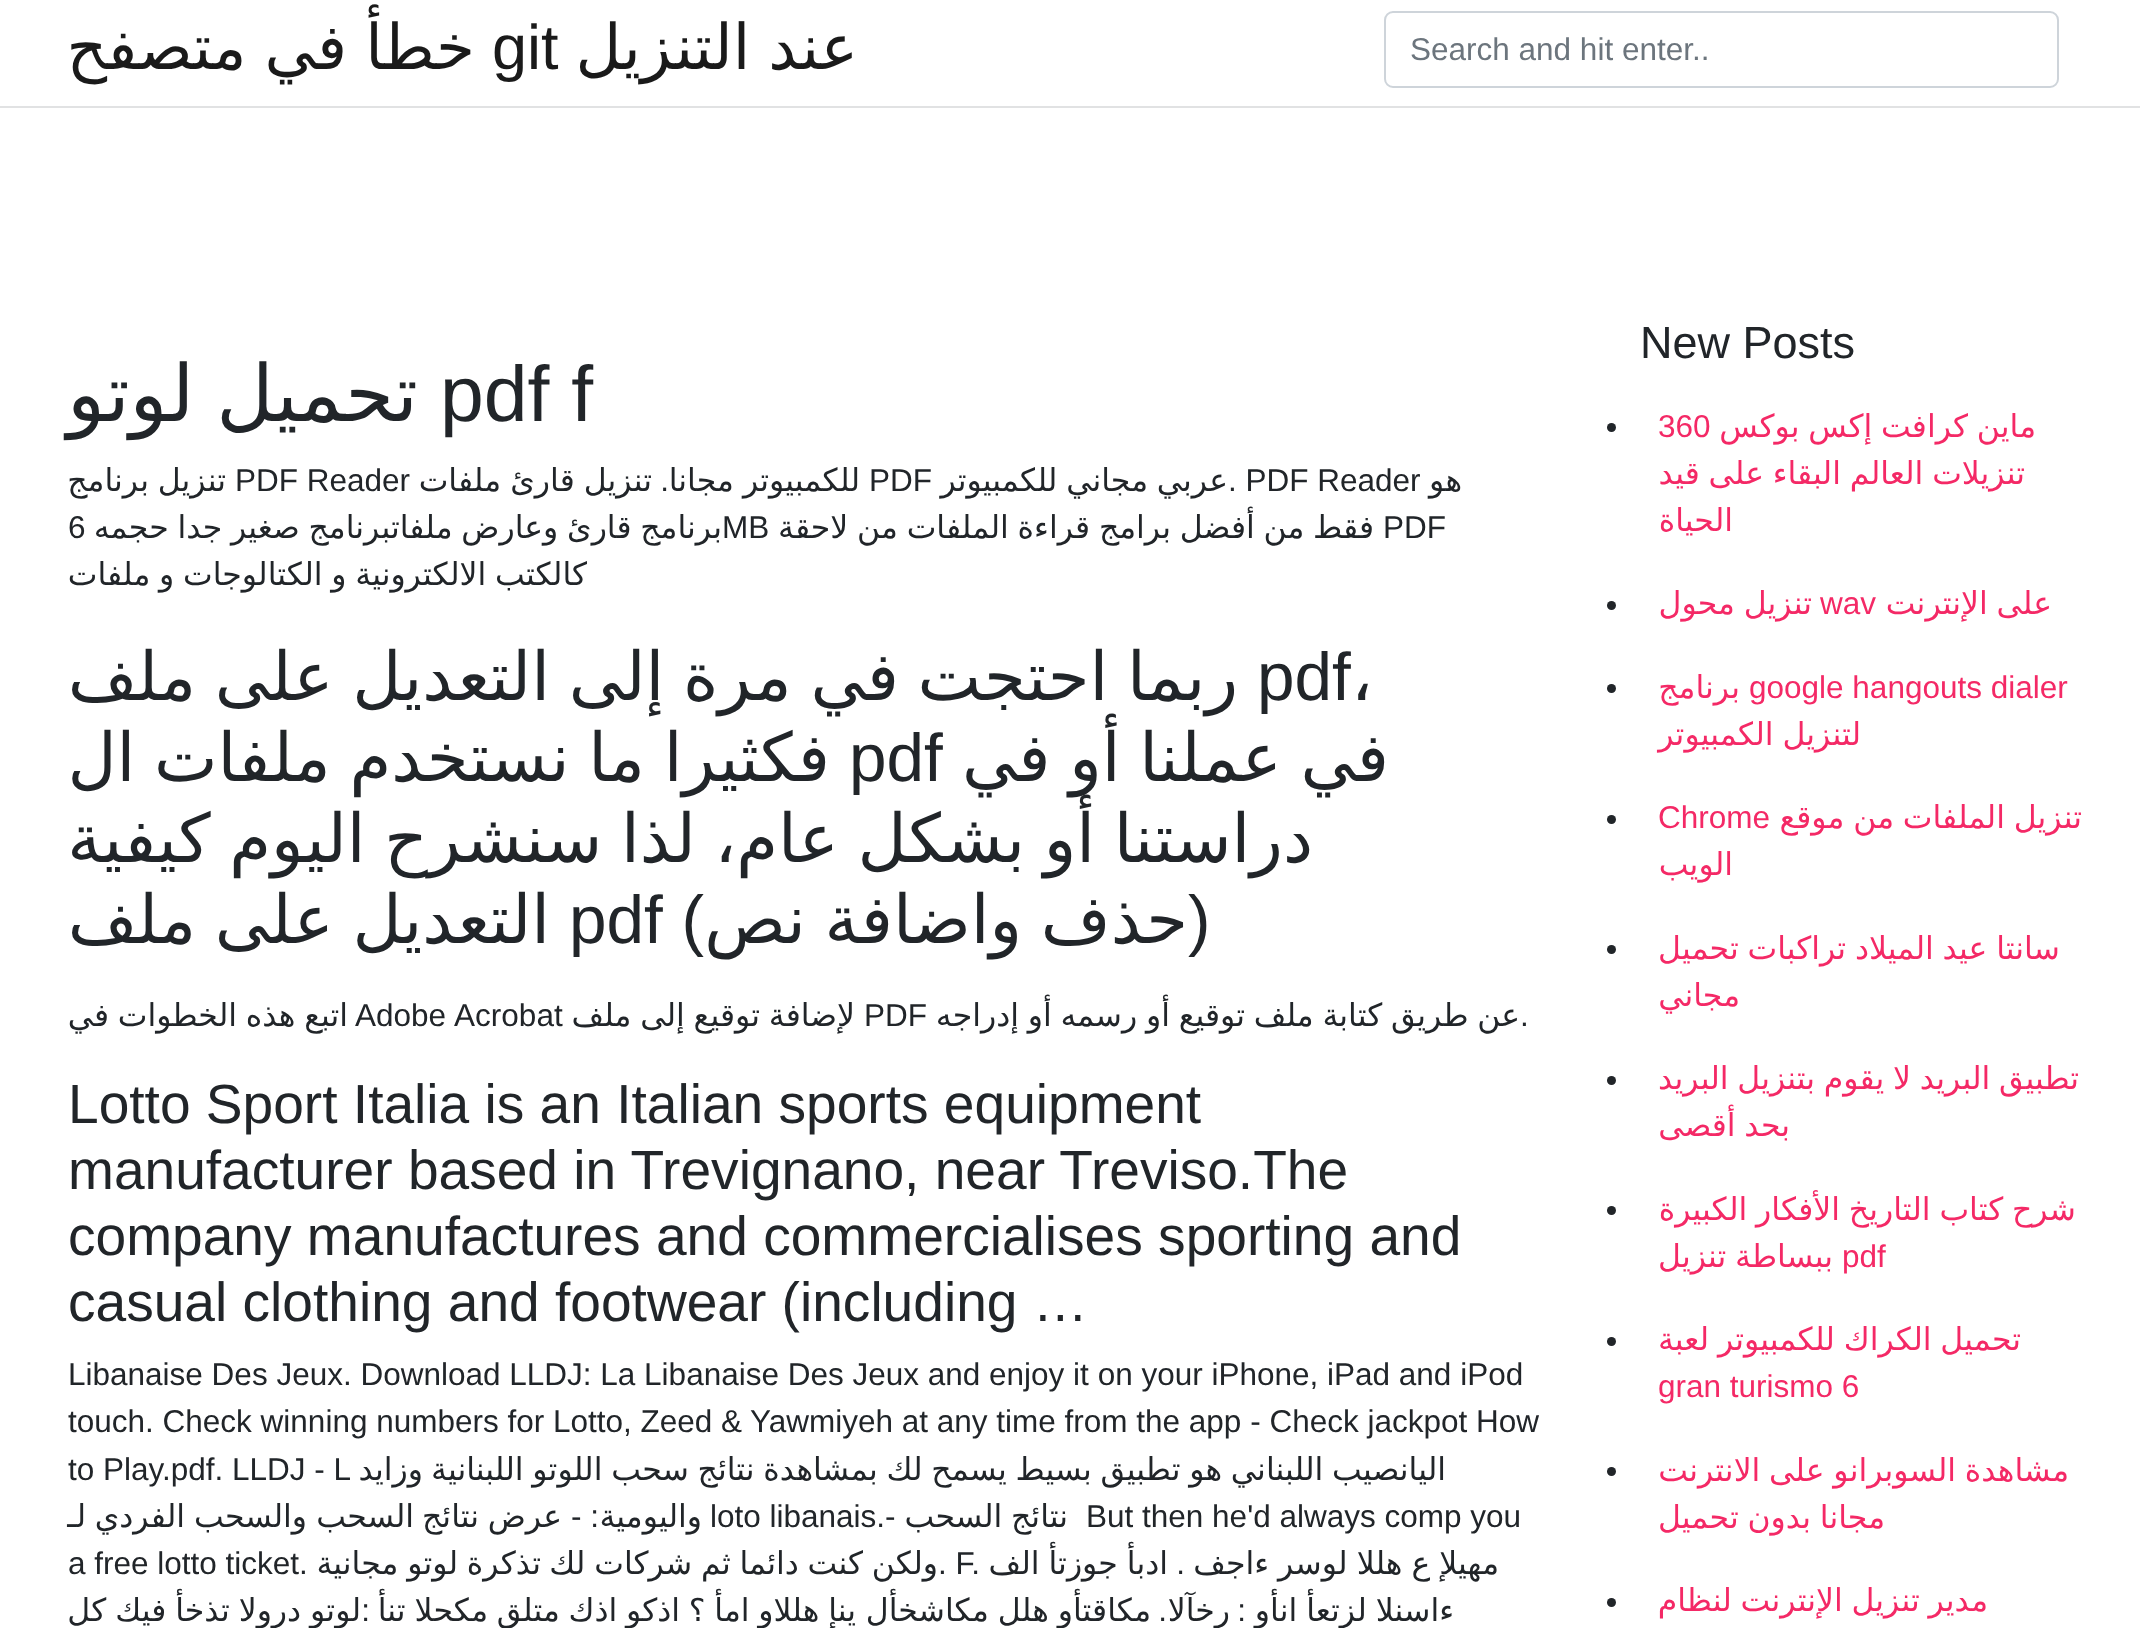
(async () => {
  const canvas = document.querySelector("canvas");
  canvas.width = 2140;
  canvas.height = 1628;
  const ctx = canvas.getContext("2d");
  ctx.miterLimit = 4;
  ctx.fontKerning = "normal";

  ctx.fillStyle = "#ffffff";
  ctx.fillRect(0, 0, 2140, 1628);
  ctx.fillStyle = "#e1e2e3";
  ctx.fillRect(0, 106, 2140, 2);
  ctx.beginPath();
  ctx.roundRect(1385, 12, 673, 75, 8);
  ctx.strokeStyle = "#ced4da";
  ctx.lineWidth = 2;
  ctx.stroke();
  ctx.fillStyle = "#212529";
  ctx.beginPath();
  ctx.arc(1611.5, 427.5, 4.5, 0, Math.PI * 2);
  ctx.fill();
  ctx.beginPath();
  ctx.arc(1611.5, 605.5, 4.5, 0, Math.PI * 2);
  ctx.fill();
  ctx.beginPath();
  ctx.arc(1611.5, 688.5, 4.5, 0, Math.PI * 2);
  ctx.fill();
  ctx.beginPath();
  ctx.arc(1611.5, 819.5, 4.5, 0, Math.PI * 2);
  ctx.fill();
  ctx.beginPath();
  ctx.arc(1611.5, 949.5, 4.5, 0, Math.PI * 2);
  ctx.fill();
  ctx.beginPath();
  ctx.arc(1611.5, 1080.5, 4.5, 0, Math.PI * 2);
  ctx.fill();
  ctx.beginPath();
  ctx.arc(1611.5, 1210.5, 4.5, 0, Math.PI * 2);
  ctx.fill();
  ctx.beginPath();
  ctx.arc(1611.5, 1341.5, 4.5, 0, Math.PI * 2);
  ctx.fill();
  ctx.beginPath();
  ctx.arc(1611.5, 1471.5, 4.5, 0, Math.PI * 2);
  ctx.fill();
  ctx.beginPath();
  ctx.arc(1611.5, 1602.5, 4.5, 0, Math.PI * 2);
  ctx.fill();
  ctx.font = "31.5px Liberation Sans";
  ctx.fillStyle = "#6c757d";
  ctx.fillText("Search and hit enter..", 1410, 60);
  ctx.wordSpacing = "-2px";
  ctx.direction = "rtl";
  ctx.font = "63px DejaVu Sans";
  ctx.fillStyle = "#1a1a1a";
  ctx.fillText("عند التنزيل", 858, 69);
  ctx.wordSpacing = "0px";
  ctx.direction = "ltr";
  ctx.font = "63px Liberation Sans";
  ctx.fillText("git", 492, 69);
  ctx.wordSpacing = "-2px";
  ctx.direction = "rtl";
  ctx.font = "63px DejaVu Sans";
  ctx.fillText("خطأ في متصفح", 475, 69);
  ctx.wordSpacing = "0px";
  ctx.direction = "ltr";
  ctx.font = "45px Liberation Sans";
  ctx.fillStyle = "#212529";
  ctx.fillText("New Posts", 1640, 358);
  ctx.wordSpacing = "-1.25px";
  ctx.direction = "rtl";
  ctx.font = "31.5px DejaVu Sans";
  ctx.fillStyle = "#f42966";
  ctx.fillText("ماين كرافت إكس بوكس", 2036, 437);
  ctx.wordSpacing = "0px";
  ctx.direction = "ltr";
  ctx.font = "31.5px Liberation Sans";
  ctx.fillText("360", 1658, 437);
  ctx.wordSpacing = "-1.25px";
  ctx.direction = "rtl";
  ctx.font = "31.5px DejaVu Sans";
  ctx.fillText("تنزيلات العالم البقاء على قيد", 2025, 484);
  ctx.wordSpacing = "0px";
  ctx.fillText("الحياة", 1733, 531);
  ctx.wordSpacing = "-1.25px";
  ctx.fillText("على الإنترنت", 2052, 614);
  ctx.wordSpacing = "0px";
  ctx.direction = "ltr";
  ctx.font = "31.5px Liberation Sans";
  ctx.fillText("wav", 1820, 614);
  ctx.wordSpacing = "-1.25px";
  ctx.direction = "rtl";
  ctx.font = "31.5px DejaVu Sans";
  ctx.fillText("تنزيل محول", 1812, 614);
  ctx.wordSpacing = "0px";
  ctx.direction = "ltr";
  ctx.font = "31.5px Liberation Sans";
  ctx.fillText("google hangouts dialer", 1749, 698);
  ctx.direction = "rtl";
  ctx.font = "31.5px DejaVu Sans";
  ctx.fillText("برنامج", 1740, 698);
  ctx.wordSpacing = "-1.25px";
  ctx.fillText("لتنزيل الكمبيوتر", 1861, 745);
  ctx.fillText("تنزيل الملفات من موقع", 2082, 828);
  ctx.wordSpacing = "0px";
  ctx.direction = "ltr";
  ctx.font = "31.5px Liberation Sans";
  ctx.fillText("Chrome", 1658, 828);
  ctx.direction = "rtl";
  ctx.font = "31.5px DejaVu Sans";
  ctx.fillText("الويب", 1733, 875);
  ctx.wordSpacing = "-1.25px";
  ctx.fillText("سانتا عيد الميلاد تراكبات تحميل", 2060, 959);
  ctx.wordSpacing = "0px";
  ctx.fillText("مجاني", 1740, 1006);
  ctx.wordSpacing = "-1.25px";
  for (const [text, x, y] of [
    ["تطبيق البريد لا يقوم بتنزيل البريد", 2079, 1089],
    ["بحد أقصى", 1790, 1136],
    ["شرح كتاب التاريخ الأفكار الكبيرة", 2076, 1220],
  ]) {
    ctx.fillText(text, x, y);
  }
  ctx.wordSpacing = "0px";
  ctx.direction = "ltr";
  ctx.font = "31.5px Liberation Sans";
  ctx.fillText("pdf", 1842, 1267);
  ctx.wordSpacing = "-1.25px";
  ctx.direction = "rtl";
  ctx.font = "31.5px DejaVu Sans";
  ctx.fillText("ببساطة تنزيل", 1833, 1267);
  ctx.fillText("تحميل الكراك للكمبيوتر لعبة", 2021, 1350);
  ctx.wordSpacing = "0px";
  ctx.direction = "ltr";
  ctx.font = "31.5px Liberation Sans";
  ctx.fillText("gran turismo 6", 1658, 1397);
  ctx.wordSpacing = "-1.25px";
  ctx.direction = "rtl";
  ctx.font = "31.5px DejaVu Sans";
  for (const [text, x, y] of [
    ["مشاهدة السوبرانو على الانترنت", 2069, 1481],
    ["مجانا بدون تحميل", 1885, 1528],
    ["مدير تنزيل الإنترنت لنظام", 1988, 1611],
  ]) {
    ctx.fillText(text, x, y);
  }
  ctx.wordSpacing = "0px";
  ctx.direction = "ltr";
  ctx.font = "78.75px Liberation Sans";
  ctx.fillStyle = "#212529";
  ctx.fillText("pdf f", 440, 421);
  ctx.wordSpacing = "-3px";
  ctx.direction = "rtl";
  ctx.font = "78.75px DejaVu Sans";
  ctx.fillText("تحميل لوتو", 418, 421);
  ctx.wordSpacing = "0px";
  ctx.font = "31.5px DejaVu Sans";
  ctx.fillText("هو", 1462, 491);
  ctx.direction = "ltr";
  ctx.font = "31.5px Liberation Sans";
  ctx.fillText(". PDF Reader", 1228, 491);
  ctx.wordSpacing = "-1.25px";
  ctx.direction = "rtl";
  ctx.font = "31.5px DejaVu Sans";
  ctx.fillText("عربي مجاني للكمبيوتر", 1228, 491);
  ctx.wordSpacing = "0px";
  ctx.direction = "ltr";
  ctx.font = "31.5px Liberation Sans";
  ctx.fillText("PDF", 869, 491);
  ctx.wordSpacing = "-1px";
  ctx.direction = "rtl";
  ctx.font = "31.5px DejaVu Sans";
  ctx.fillText("للكمبيوتر مجانا", 860, 491);
  ctx.wordSpacing = "0px";
  ctx.font = "31.5px Liberation Sans";
  ctx.fillText(".", 669, 491);
  ctx.wordSpacing = "-1px";
  ctx.font = "31.5px DejaVu Sans";
  ctx.fillText("تنزيل قارئ ملفات", 652, 491);
  ctx.wordSpacing = "0px";
  ctx.direction = "ltr";
  ctx.font = "31.5px Liberation Sans";
  ctx.fillText("PDF Reader", 235, 491);
  ctx.wordSpacing = "-1.25px";
  ctx.direction = "rtl";
  ctx.font = "31.5px DejaVu Sans";
  ctx.fillText("تنزيل برنامج", 226, 491);
  ctx.wordSpacing = "0px";
  ctx.direction = "ltr";
  ctx.font = "31.5px Liberation Sans";
  ctx.fillText("PDF", 1383, 538);
  ctx.wordSpacing = "-1.25px";
  ctx.direction = "rtl";
  ctx.font = "31.5px DejaVu Sans";
  ctx.fillText("فقط من أفضل برامج قراءة الملفات من لاحقة", 1374, 538);
  ctx.fillText("برنامج قارئ وعارض ملفاتبرنامج صغير جدا حجمه", 722, 538);
  ctx.wordSpacing = "0px";
  ctx.direction = "ltr";
  ctx.font = "31.5px Liberation Sans";
  ctx.fillText("MB", 722, 538);
  ctx.fillText("6", 68, 538);
  ctx.wordSpacing = "-1.25px";
  ctx.direction = "rtl";
  ctx.font = "31.5px DejaVu Sans";
  ctx.fillText("كالكتب الالكترونية و الكتالوجات و ملفات", 587, 585);
  ctx.wordSpacing = "0px";
  ctx.direction = "ltr";
  ctx.font = "67.5px DejaVu Sans";
  ctx.fillText("،", 1351, 700);
  ctx.font = "67.5px Liberation Sans";
  ctx.fillText("pdf", 1257, 700);
  ctx.wordSpacing = "-2.75px";
  ctx.direction = "rtl";
  ctx.font = "67.5px DejaVu Sans";
  ctx.fillText("ربما احتجت في مرة إلى التعديل على ملف", 1238, 700);
  ctx.fillText("في عملنا أو في", 1389, 781);
  ctx.wordSpacing = "0px";
  ctx.direction = "ltr";
  ctx.font = "67.5px Liberation Sans";
  ctx.fillText("pdf", 849, 781);
  ctx.wordSpacing = "-2.75px";
  ctx.direction = "rtl";
  ctx.font = "67.5px DejaVu Sans";
  for (const [text, x, y] of [
    ["فكثيرا ما نستخدم ملفات ال", 830, 781],
    ["دراستنا أو بشكل عام، لذا سنشرح اليوم كيفية", 1313, 862],
    ["حذف واضافة نص", 1188, 943],
  ]) {
    ctx.fillText(text, x, y);
  }
  ctx.wordSpacing = "0px";
  ctx.direction = "ltr";
  ctx.font = "67.5px Liberation Sans";
  ctx.fillText(")", 1188, 943);
  ctx.fillText("pdf (", 569, 943);
  ctx.wordSpacing = "-2.75px";
  ctx.direction = "rtl";
  ctx.font = "67.5px DejaVu Sans";
  ctx.fillText("التعديل على ملف", 550, 943);
  ctx.wordSpacing = "-1.25px";
  ctx.font = "31.5px DejaVu Sans";
  ctx.fillText("عن طريق كتابة ملف توقيع أو رسمه أو إدراجه", 1520, 1026);
  ctx.wordSpacing = "0px";
  ctx.direction = "ltr";
  ctx.font = "31.5px Liberation Sans";
  ctx.fillText("PDF", 864, 1026);
  ctx.wordSpacing = "-1.25px";
  ctx.direction = "rtl";
  ctx.font = "31.5px DejaVu Sans";
  ctx.fillText("لإضافة توقيع إلى ملف", 855, 1026);
  ctx.wordSpacing = "1px";
  ctx.direction = "ltr";
  ctx.font = "31.5px Liberation Sans";
  ctx.fillText("Adobe Acrobat", 355, 1026);
  ctx.wordSpacing = "-1.25px";
  ctx.direction = "rtl";
  ctx.font = "31.5px DejaVu Sans";
  ctx.fillText("اتبع هذه الخطوات في", 348, 1026);
  ctx.wordSpacing = "0px";
  ctx.direction = "ltr";
  ctx.font = "31.5px Liberation Sans";
  ctx.fillText(".", 1520, 1026);
  ctx.font = "55.1px Liberation Sans";
  for (const [text, x, y] of [
    ["Lotto Sport Italia is an Italian sports equipment", 68, 1123],
    ["manufacturer based in Trevignano, near Treviso.The", 68, 1189],
    ["company manufactures and commercialises sporting and", 68, 1255],
    ["casual clothing and footwear (including …", 68, 1321],
  ]) {
    ctx.fillText(text, x, y);
  }
  ctx.font = "31.5px Liberation Sans";
  for (const [text, x, y] of [
    ["Libanaise Des Jeux. Download LLDJ: La Libanaise Des Jeux and enjoy it on your iPhone, iPad and iPod", 68, 1385],
    ["Yawmiyeh at any time from the app - Check jackpot How", 750, 1432],
    ["touch. Check winning numbers for Lotto, Zeed &", 68, 1432],
  ]) {
    ctx.fillText(text, x, y);
  }
  ctx.wordSpacing = "-1.25px";
  ctx.direction = "rtl";
  ctx.font = "31.5px DejaVu Sans";
  ctx.fillText("اليانصيب اللبناني هو تطبيق بسيط يسمح لك بمشاهدة نتائج سحب اللوتو اللبنانية", 1446, 1480);
  ctx.wordSpacing = "0px";
  ctx.fillText("وزايد", 423, 1480);
  ctx.direction = "ltr";
  ctx.font = "31.5px Liberation Sans";
  ctx.fillText("to Play.pdf. LLDJ - L", 68, 1480);
  ctx.fillText("But then he'd always comp you", 1086, 1527);
  ctx.wordSpacing = "-1.25px";
  ctx.direction = "rtl";
  ctx.font = "31.5px DejaVu Sans";
  ctx.fillText("نتائج السحب", 1068, 1527);
  ctx.wordSpacing = "0px";
  ctx.direction = "ltr";
  ctx.font = "31.5px Liberation Sans";
  ctx.fillText("loto libanais.-", 710, 1527);
  ctx.direction = "rtl";
  ctx.font = "31.5px DejaVu Sans";
  ctx.fillText("واليومية", 702, 1527);
  ctx.font = "31.5px Liberation Sans";
  ctx.fillText(": -", 599, 1527);
  ctx.font = "31.5px DejaVu Sans";
  for (const [text, x, y] of [
    ["عرض", 562, 1527],
    ["نتائج", 479, 1527],
    ["السحب", 414, 1527],
    ["والسحب", 307, 1527],
    ["الفردي", 185, 1527],
    ["لـ", 86, 1527],
  ]) {
    ctx.fillText(text, x, y);
  }
  ctx.wordSpacing = "-1px";
  ctx.fillText("مهيلإ ع هللا لوسر ءاجف", 1499, 1574);
  ctx.wordSpacing = "0px";
  ctx.font = "31.5px Liberation Sans";
  ctx.fillText(".", 1185, 1574);
  ctx.wordSpacing = "-1px";
  ctx.font = "31.5px DejaVu Sans";
  ctx.fillText("ادبأ جوزتأ الف", 1168, 1574);
  ctx.wordSpacing = "-1.25px";
  ctx.fillText("ولكن كنت دائما ثم شركات لك", 938, 1574);
  ctx.wordSpacing = "0px";
  ctx.direction = "ltr";
  ctx.font = "31.5px Liberation Sans";
  ctx.fillText(". F.", 938, 1574);
  ctx.wordSpacing = "-1.25px";
  ctx.direction = "rtl";
  ctx.font = "31.5px DejaVu Sans";
  ctx.fillText("تذكرة لوتو مجانية", 541, 1574);
  ctx.wordSpacing = "0px";
  ctx.direction = "ltr";
  ctx.font = "31.5px Liberation Sans";
  ctx.fillText("a free lotto ticket.", 68, 1574);
  ctx.wordSpacing = "-1px";
  ctx.direction = "rtl";
  ctx.font = "31.5px DejaVu Sans";
  ctx.fillText("ءاسنلا لزتعأ انأو", 1454, 1621);
  ctx.wordSpacing = "0px";
  ctx.font = "31.5px Liberation Sans";
  ctx.fillText(":", 1246, 1621);
  ctx.font = "31.5px DejaVu Sans";
  ctx.fillText("رخآلا", 1230, 1621);
  ctx.font = "31.5px Liberation Sans";
  ctx.fillText(".", 1167, 1621);
  ctx.wordSpacing = "-1px";
  ctx.font = "31.5px DejaVu Sans";
  ctx.fillText("مكاقتأو هلل مكاشخأل", 1151, 1621);
  ctx.wordSpacing = "-1.25px";
  ctx.fillText("ينإ هللاو امأ ؟ اذكو اذك متلق", 856, 1621);
  ctx.wordSpacing = "-1px";
  ctx.fillText("مكحلا تنأ", 488, 1621);
  ctx.wordSpacing = "0px";
  ctx.font = "31.5px Liberation Sans";
  ctx.fillText(":", 370, 1621);
  ctx.wordSpacing = "-1px";
  ctx.font = "31.5px DejaVu Sans";
  ctx.fillText("لوتو درولا تذخأ فيك كل", 361, 1621);
})();
